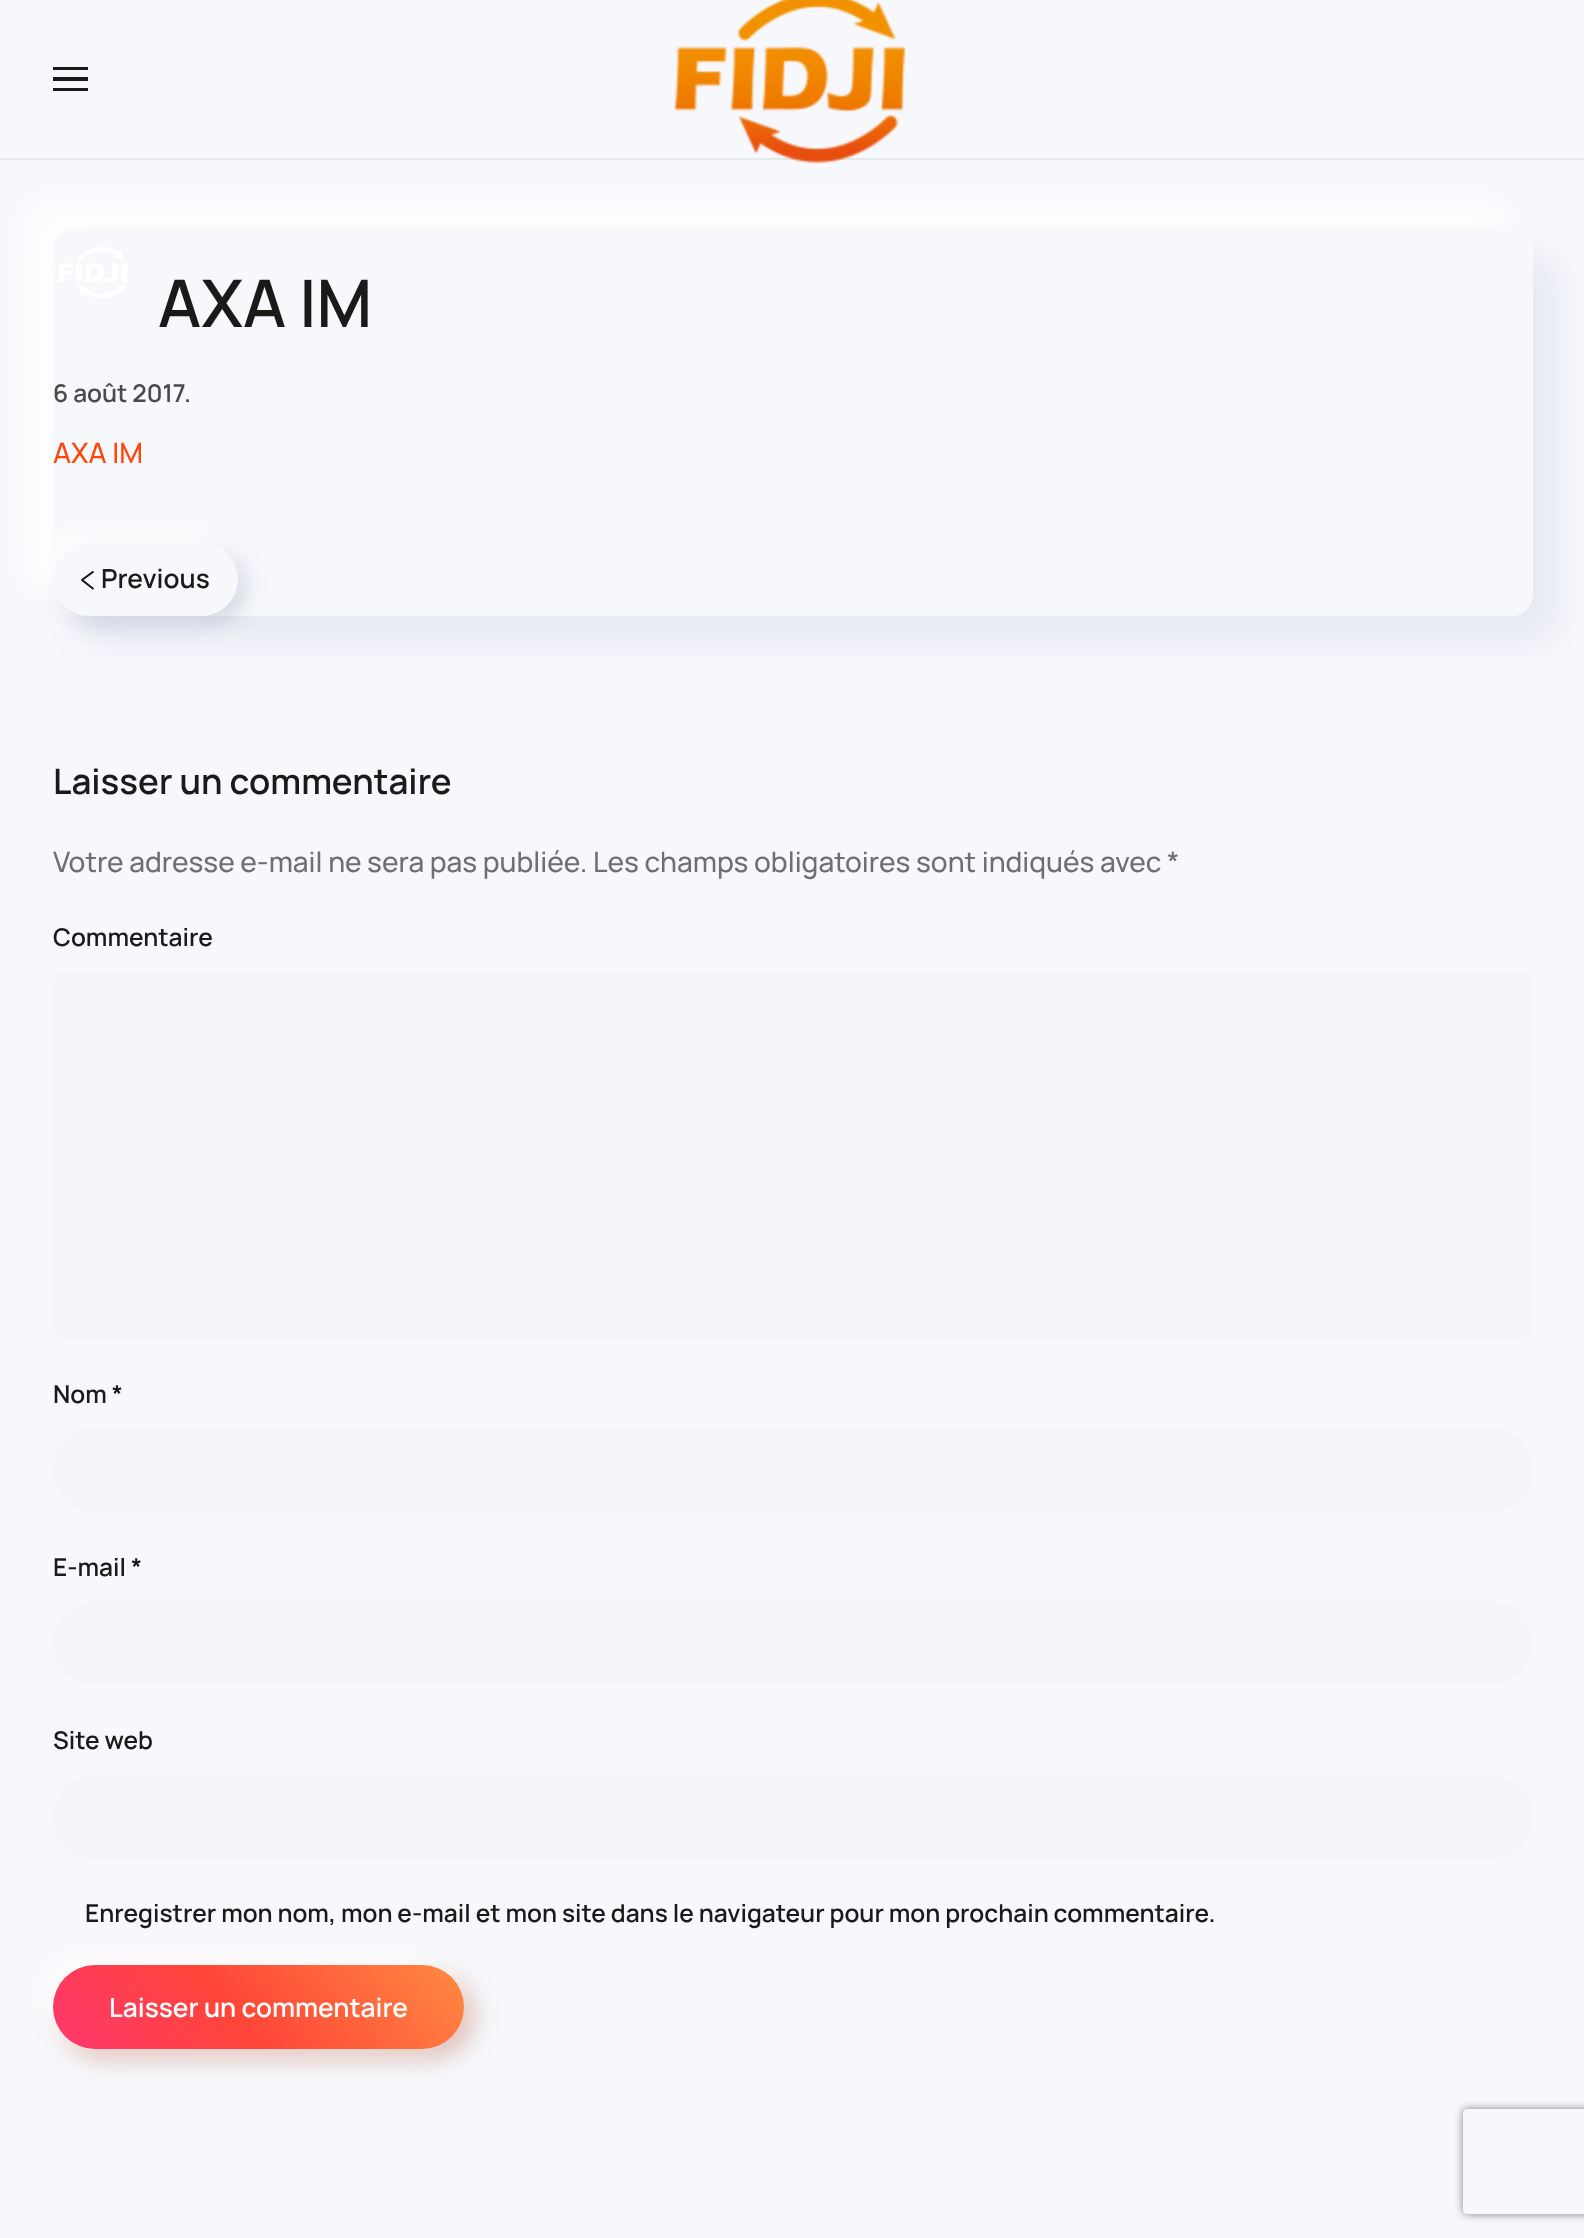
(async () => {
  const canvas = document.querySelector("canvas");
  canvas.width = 1584;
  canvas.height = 2238;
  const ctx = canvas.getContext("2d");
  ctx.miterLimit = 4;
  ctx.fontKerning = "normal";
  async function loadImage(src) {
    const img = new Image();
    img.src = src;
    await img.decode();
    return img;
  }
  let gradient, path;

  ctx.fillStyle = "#f7f8fc";
  ctx.fillRect(0, 0, 1584, 2238);
  ctx.fillStyle = "rgba(255, 255, 255, 0.8)";
  ctx.filter = "blur(17.5px)";
  ctx.beginPath();
  ctx.roundRect(26, 203, 1481, 387, 21);
  ctx.fill();
  ctx.filter = "none";
  for (const [x, y, w, h, color] of [
    [0, 158, 1584, 2, "#e5e9ed"],
    [53, 67, 35, 3, "#1a1a1a"],
    [53, 77, 35, 4, "#1a1a1a"],
    [53, 88, 35, 3, "#1a1a1a"],
  ]) {
    ctx.fillStyle = color;
    ctx.fillRect(x, y, w, h);
  }
  ctx.drawImage(await loadImage("img/1.png"), 673, 0, 233, 164);
  ctx.fillStyle = "rgba(57, 65, 124, 0.08)";
  ctx.filter = "blur(17.5px)";
  ctx.beginPath();
  ctx.roundRect(79, 256, 1480, 386, 21);
  ctx.fill();
  ctx.filter = "none";
  ctx.fillStyle = "#f7f8fc";
  ctx.beginPath();
  ctx.roundRect(53, 229, 1480, 387, 21);
  ctx.fill();
  ctx.drawImage(await loadImage("img/2.png"), 58, 247, 70, 51);
  ctx.save();
  path = new Path2D("M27 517H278V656H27ZM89.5 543H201.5C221.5 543 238 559.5 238 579.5C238 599.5 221.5 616 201.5 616H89.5C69.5 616 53 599.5 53 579.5C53 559.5 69.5 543 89.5 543Z");
  ctx.clip(path, "evenodd");
  ctx.fillStyle = "rgba(57, 65, 124, 0.2)";
  ctx.filter = "blur(10.5px)";
  ctx.beginPath();
  ctx.roundRect(60, 550, 185, 73, 36.5);
  ctx.fill();
  ctx.filter = "none";
  ctx.restore();
  ctx.save();
  path = new Path2D("M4 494H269V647H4ZM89.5 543H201.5C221.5 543 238 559.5 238 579.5C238 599.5 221.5 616 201.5 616H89.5C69.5 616 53 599.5 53 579.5C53 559.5 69.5 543 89.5 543Z");
  ctx.clip(path, "evenodd");
  ctx.fillStyle = "rgba(255, 255, 255, 0.9)";
  ctx.filter = "blur(13px)";
  ctx.beginPath();
  ctx.roundRect(44, 534, 185, 73, 36.5);
  ctx.fill();
  ctx.filter = "none";
  ctx.restore();
  ctx.save();
  ctx.beginPath();
  ctx.rect(81, 571, 14, 19);
  ctx.clip();
  path = new Path2D("M93.5 571.5L82 580L93.5 589");
  ctx.strokeStyle = "#1a1a1a";
  ctx.lineWidth = 2.1;
  ctx.stroke(path);
  ctx.restore();
  ctx.fillStyle = "#f3f5fb";
  ctx.beginPath();
  ctx.roundRect(53, 971, 1480, 368, 14);
  ctx.fill();
  ctx.beginPath();
  ctx.roundRect(53, 1428, 1480, 84, 42);
  ctx.fill();
  ctx.beginPath();
  ctx.roundRect(53, 1601, 1480, 84, 42);
  ctx.fill();
  ctx.beginPath();
  ctx.roundRect(53, 1775, 1480, 84, 42);
  ctx.fill();
  ctx.fillStyle = "rgba(163, 39, 0, 0.3)";
  ctx.filter = "blur(13px)";
  ctx.beginPath();
  ctx.roundRect(61, 1974, 412, 84, 42);
  ctx.fill();
  ctx.filter = "none";
  ctx.fillStyle = "rgba(255, 255, 255, 0.9)";
  ctx.filter = "blur(13px)";
  ctx.beginPath();
  ctx.roundRect(44, 1957, 411, 84, 42);
  ctx.fill();
  ctx.filter = "none";
  gradient = ctx.createLinearGradient(-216, 2225, 321, 1789);
  gradient.addColorStop(0.5, "#fe3966");
  gradient.addColorStop(0.7, "#ff4538");
  gradient.addColorStop(1, "#ff8a42");
  ctx.fillStyle = gradient;
  ctx.beginPath();
  ctx.roundRect(53, 1965, 411, 84, 42);
  ctx.fill();
  ctx.save();
  path = new Path2D("M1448 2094H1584V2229H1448ZM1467 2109H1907C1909 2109 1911 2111 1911 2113V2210C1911 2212 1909 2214 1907 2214H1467C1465 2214 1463 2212 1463 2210V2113C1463 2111 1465 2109 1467 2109Z");
  ctx.clip(path, "evenodd");
  ctx.fillStyle = "#808080";
  ctx.filter = "blur(4.5px)";
  ctx.beginPath();
  ctx.roundRect(1463, 2109, 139, 105, 4);
  ctx.fill();
  ctx.filter = "none";
  ctx.restore();
  ctx.font = "200 65.5px Manrope";
  ctx.fillStyle = "#1a1a1a";
  ctx.fillText("AXA IM", 158, 327);
  ctx.font = "200 24.5px Manrope";
  ctx.fillStyle = "#4a4a4c";
  ctx.fillText("6 août 2017", 53, 402);
  ctx.fillText(".", 184, 402);
  ctx.font = "200 28px 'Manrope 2'";
  ctx.fillStyle = "#ff450a";
  ctx.fillText("AXA IM", 53, 463);
  ctx.font = "200 26.25px Manrope";
  ctx.fillStyle = "#1a1a1a";
  ctx.fillText("Previous", 101, 588);
  ctx.font = "200 35px Manrope";
  ctx.fillText("Laisser un commentaire", 53, 794);
  ctx.font = "200 28px 'Manrope 2'";
  ctx.fillStyle = "#6d6f72";
  ctx.fillText("Votre adresse e-mail ne sera pas publiée. Les champs obligatoires sont indiqués avec *", 53, 872);
  ctx.font = "200 24.5px Manrope";
  ctx.fillStyle = "#1a1a1a";
  for (const [text, x, y] of [
    ["Commentaire", 53, 946],
    ["Nom *", 53, 1403],
    ["E-mail *", 53, 1576],
    ["Site web", 53, 1749],
    ["Enregistrer mon nom, mon e-mail et mon site dans le navigateur pour mon prochain commentaire.", 85, 1922],
  ]) {
    ctx.fillText(text, x, y);
  }
  ctx.font = "200 26.25px Manrope";
  ctx.fillStyle = "#ffffff";
  ctx.fillText("Laisser un commentaire", 109, 2017);
})();
